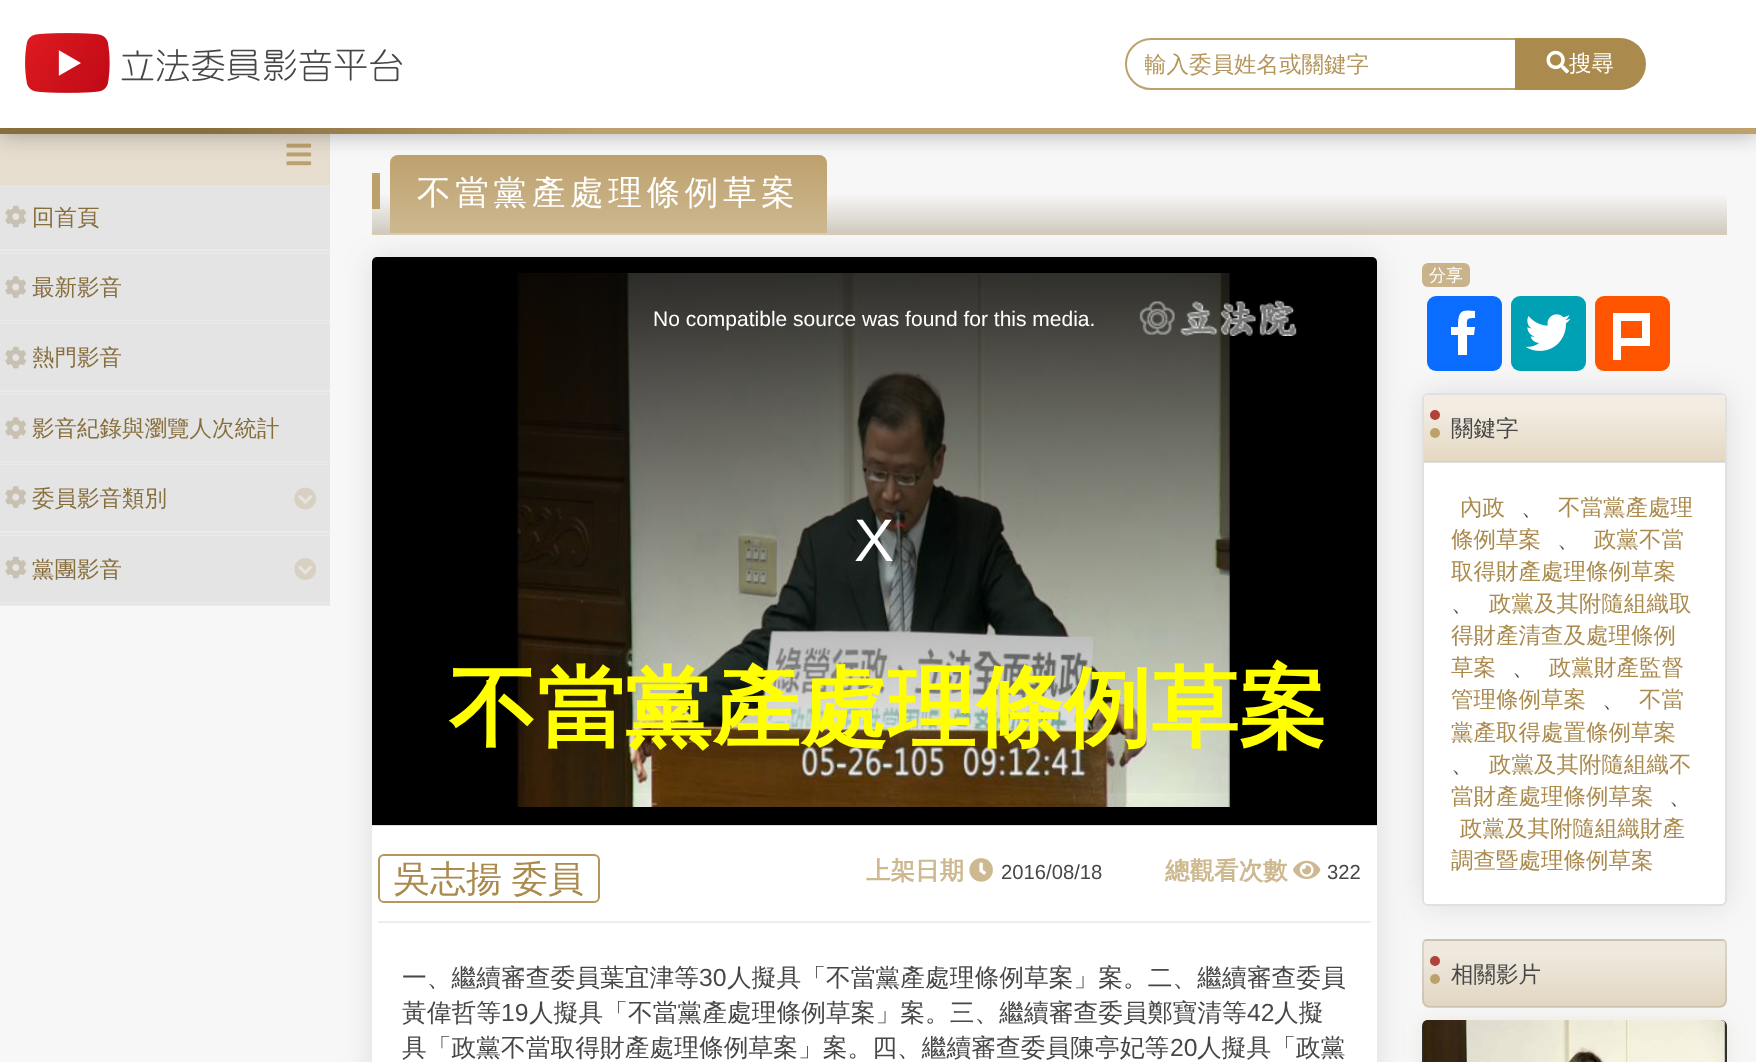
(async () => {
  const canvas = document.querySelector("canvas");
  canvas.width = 1756;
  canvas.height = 1062;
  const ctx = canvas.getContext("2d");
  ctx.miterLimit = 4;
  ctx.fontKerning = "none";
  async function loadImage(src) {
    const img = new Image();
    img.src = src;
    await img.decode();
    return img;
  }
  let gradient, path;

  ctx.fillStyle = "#f7f7f7";
  ctx.fillRect(0, 0, 1756, 1062);
  ctx.fillStyle = "#e6ddce";
  ctx.fillRect(0, 134, 330, 51);
  ctx.drawImage(await loadImage("img/3.png"), 286, 143, 26, 23);
  gradient = ctx.createLinearGradient(1049, 154, 1049, 233);
  gradient.addColorStop(0.5, "#f7f7f7");
  gradient.addColorStop(1, "#d0cbc0");
  ctx.fillStyle = gradient;
  ctx.fillRect(372, 195, 1355, 38);
  gradient = ctx.createLinearGradient(608, 154, 608, 233);
  gradient.addColorStop(0, "#bda16d");
  gradient.addColorStop(1, "#cdb890");
  ctx.fillStyle = gradient;
  ctx.beginPath();
  ctx.roundRect(390, 155, 437, 78, [8, 8, 0, 0]);
  ctx.fill();
  ctx.fillStyle = "rgba(0, 0, 0, 0.3)";
  ctx.filter = "blur(11px)";
  ctx.beginPath();
  ctx.rect(0, 0, 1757, 134);
  ctx.fill();
  ctx.filter = "none";
  gradient = ctx.createLinearGradient(0, 67, 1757, 67);
  gradient.addColorStop(0.12, "#876e3d");
  gradient.addColorStop(0.34, "#bda16d");
  ctx.fillStyle = gradient;
  ctx.fillRect(0, 128, 1756, 6);
  ctx.fillStyle = "#ffffff";
  ctx.fillRect(0, 0, 1756, 128);
  ctx.drawImage(await loadImage("img/1.png"), 25, 33, 377, 60);
  ctx.beginPath();
  ctx.roundRect(1126, 39, 390, 50, [25, 0, 0, 25]);
  ctx.strokeStyle = "#bda16d";
  ctx.lineWidth = 2;
  ctx.stroke();
  ctx.fillStyle = "#aa8a4d";
  ctx.beginPath();
  ctx.roundRect(1515, 38, 131, 52, [0, 26, 26, 0]);
  ctx.fill();
  ctx.drawImage(await loadImage("img/2.png"), 1546, 50, 23, 24);
  for (const [x, y, w, h, color] of [
    [0, 249, 330, 357, "#eaeaea"],
    [0, 251, 330, 2, "#e5e5e5"],
    [0, 185, 330, 64, "#e4e4e4"],
  ]) {
    ctx.fillStyle = color;
    ctx.fillRect(x, y, w, h);
  }
  ctx.drawImage(await loadImage("img/4.png"), 5, 205, 22, 23);
  ctx.fillStyle = "#e5e5e5";
  ctx.fillRect(0, 321, 330, 2);
  ctx.fillStyle = "#e4e4e4";
  ctx.fillRect(0, 254, 330, 66);
  ctx.drawImage(await loadImage("img/5.png"), 5, 276, 21, 22);
  ctx.fillStyle = "#e5e5e5";
  ctx.fillRect(0, 392, 330, 2);
  ctx.fillStyle = "#e4e4e4";
  ctx.fillRect(0, 324, 330, 66);
  ctx.drawImage(await loadImage("img/4.png"), 5, 346, 22, 23);
  ctx.fillStyle = "#e5e5e5";
  ctx.fillRect(0, 462, 330, 2);
  ctx.fillStyle = "#e4e4e4";
  ctx.fillRect(0, 395, 330, 66);
  ctx.drawImage(await loadImage("img/5.png"), 5, 417, 21, 22);
  ctx.fillStyle = "#e5e5e5";
  ctx.fillRect(0, 533, 330, 2);
  ctx.fillStyle = "#e4e4e4";
  ctx.fillRect(0, 465, 330, 66);
  ctx.drawImage(await loadImage("img/5.png"), 5, 486, 21, 22);
  ctx.drawImage(await loadImage("img/6.png"), 294, 487, 23, 23);
  ctx.fillStyle = "#e5e5e5";
  ctx.fillRect(0, 603, 330, 2);
  ctx.fillStyle = "#e4e4e4";
  ctx.fillRect(0, 536, 330, 66);
  ctx.drawImage(await loadImage("img/4.png"), 5, 556, 22, 23);
  ctx.drawImage(await loadImage("img/7.png"), 294, 558, 22, 22);
  ctx.fillStyle = "#daccb2";
  ctx.fillRect(372, 233, 1355, 2);
  ctx.fillStyle = "#bda16d";
  ctx.fillRect(372, 173, 8, 36);
  ctx.fillStyle = "rgba(0, 0, 0, 0.1)";
  ctx.filter = "blur(15px)";
  ctx.beginPath();
  ctx.roundRect(372, 257, 1005, 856, 6);
  ctx.fill();
  ctx.filter = "none";
  ctx.fillStyle = "#ffffff";
  ctx.beginPath();
  ctx.roundRect(372, 257, 1005, 805, [6, 6, 0, 0]);
  ctx.fill();
  ctx.fillStyle = "#e0e0e0";
  ctx.fillRect(372, 825, 1005, 1);
  ctx.fillStyle = "#000000";
  ctx.beginPath();
  ctx.roundRect(372, 257, 1005, 568, [5, 5, 0, 0]);
  ctx.fill();
  ctx.drawImage(await loadImage("img/8.png"), 517, 273, 713, 534);
  gradient = ctx.createLinearGradient(875, 273, 875, 807);
  gradient.addColorStop(0, "rgba(0, 0, 0, 0.8)");
  gradient.addColorStop(1, "rgba(0, 0, 0, 0)");
  ctx.fillStyle = gradient;
  ctx.fillRect(517, 273, 713, 520);
  ctx.drawImage(await loadImage("img/9.png"), 1139, 300, 158, 36);
  ctx.fillStyle = "#eeeeee";
  ctx.fillRect(378, 921, 993, 2);
  ctx.beginPath();
  ctx.roundRect(379, 855, 220, 47, 5);
  ctx.strokeStyle = "#b5965c";
  ctx.stroke();
  ctx.drawImage(await loadImage("img/10.png"), 969, 858, 24, 24);
  ctx.drawImage(await loadImage("img/11.png"), 1293, 860, 28, 19);
  ctx.fillStyle = "#c9b38a";
  ctx.beginPath();
  ctx.roundRect(1422, 263, 48, 24, 6);
  ctx.fill();
  ctx.fillStyle = "#0b6dff";
  ctx.beginPath();
  ctx.roundRect(1427, 296, 75, 75, 9);
  ctx.fill();
  ctx.fillStyle = "#ffffff";
  path = new Path2D("M1474 335H1467V355H1458V335H1451V327H1458C1458 312 1460 309 1475 311V318C1466 318 1467 319 1467 327H1475Z");
  ctx.fill(path);
  ctx.fillStyle = "#00a1b4";
  ctx.beginPath();
  ctx.roundRect(1511, 296, 75, 75, 9);
  ctx.fill();
  ctx.drawImage(await loadImage("img/12.png"), 1525, 314, 46, 37);
  ctx.fillStyle = "#ff5500";
  ctx.beginPath();
  ctx.roundRect(1595, 296, 75, 75, 9);
  ctx.fill();
  ctx.fillStyle = "#ffffff";
  path = new Path2D("M1613 313V360H1621V346H1650V313ZM1642 338H1621V321H1642Z");
  ctx.fill(path);
  ctx.fillStyle = "rgba(0, 0, 0, 0.1)";
  ctx.filter = "blur(15px)";
  ctx.beginPath();
  ctx.roundRect(1422, 393, 305, 513, 6);
  ctx.fill();
  ctx.filter = "none";
  ctx.fillStyle = "#ffffff";
  ctx.beginPath();
  ctx.roundRect(1422, 393, 305, 513, 6);
  ctx.fill();
  ctx.fillStyle = "#e0e0e0";
  ctx.fillRect(1424, 462, 301, 1);
  ctx.beginPath();
  ctx.roundRect(1423, 394, 303, 511, 5);
  ctx.strokeStyle = "rgba(0, 0, 0, 0.12)";
  ctx.stroke();
  gradient = ctx.createLinearGradient(1574, 395, 1574, 461);
  gradient.addColorStop(0.2, "#f2ece2");
  gradient.addColorStop(1, "#e4d8c2");
  ctx.fillStyle = gradient;
  ctx.beginPath();
  ctx.roundRect(1424, 395, 301, 66, [5, 5, 0, 0]);
  ctx.fill();
  gradient = ctx.createLinearGradient(1574, 461, 1574, 527);
  gradient.addColorStop(0.2, "#d5d1c7");
  gradient.addColorStop(1, "#c9beab");
  ctx.fillStyle = gradient;
  ctx.fillRect(1424, 461, 301, 1);
  ctx.fillStyle = "#b1423a";
  ctx.beginPath();
  ctx.arc(1435, 415, 5, 0, Math.PI * 2);
  ctx.fill();
  ctx.fillStyle = "#bda16d";
  ctx.beginPath();
  ctx.arc(1435, 433, 5, 0, Math.PI * 2);
  ctx.fill();
  ctx.save();
  ctx.beginPath();
  ctx.roundRect(1422, 939, 305, 69, [5, 5, 8, 8]);
  ctx.clip();
  gradient = ctx.createLinearGradient(1574, 875, 1574, 941);
  gradient.addColorStop(0.2, "#eee8de");
  gradient.addColorStop(1, "#e2d6c1");
  ctx.fillStyle = gradient;
  ctx.fillRect(1422, 939, 305, 2);
  gradient = ctx.createLinearGradient(1574, 941, 1574, 1007);
  gradient.addColorStop(0.2, "#eee8de");
  gradient.addColorStop(1, "#e2d6c1");
  ctx.fillStyle = gradient;
  ctx.fillRect(1422, 941, 305, 66);
  gradient = ctx.createLinearGradient(1574, 1007, 1574, 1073);
  gradient.addColorStop(0.2, "#eee9de");
  gradient.addColorStop(1, "#e2d6c1");
  ctx.fillStyle = gradient;
  ctx.fillRect(1422, 1007, 305, 1);
  ctx.restore();
  ctx.beginPath();
  ctx.roundRect(1423, 940, 303, 67, [4, 4, 7, 7]);
  ctx.strokeStyle = "rgba(0, 0, 0, 0.09)";
  ctx.stroke();
  ctx.fillStyle = "#b1423a";
  ctx.beginPath();
  ctx.arc(1435, 961, 5, 0, Math.PI * 2);
  ctx.fill();
  ctx.fillStyle = "#bda16d";
  ctx.beginPath();
  ctx.arc(1435, 979, 5, 0, Math.PI * 2);
  ctx.fill();
  ctx.fillStyle = "rgba(135, 110, 61, 0.1)";
  ctx.filter = "blur(10.5px)";
  ctx.beginPath();
  ctx.roundRect(1422, 1020, 305, 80, 6);
  ctx.fill();
  ctx.filter = "none";
  ctx.fillStyle = "#303030";
  ctx.beginPath();
  ctx.roundRect(1422, 1020, 305, 42, [6, 6, 0, 0]);
  ctx.fill();
  ctx.drawImage(await loadImage("img/13.png"), 1423, 1020, 302, 42);
  ctx.save();
  ctx.beginPath();
  ctx.rect(1145, 51, 354, 29);
  ctx.clip();
  ctx.font = "500 22.5px WenQuanYi Zen Hei";
  ctx.fillStyle = "#b5965c";
  ctx.fillText("輸入委員姓名或關鍵字", 1144, 72);
  ctx.restore();
  ctx.font = "500 22.5px WenQuanYi Zen Hei";
  ctx.fillStyle = "#ffffff";
  ctx.fillText("搜尋", 1569, 71);
  ctx.fillStyle = "#876e3d";
  for (const [text, x, y] of [
    ["回首頁", 32, 225],
    ["最新影音", 32, 295],
    ["熱門影音", 32, 365],
    ["影音紀錄與瀏覽人次統計", 32, 436],
    ["委員影音類別", 32, 506],
    ["黨團影音", 32, 577],
  ]) {
    ctx.fillText(text, x, y);
  }
  ctx.letterSpacing = "4.5px";
  ctx.font = "500 33.75px WenQuanYi Zen Hei";
  ctx.fillStyle = "#ffffff";
  ctx.fillText("不當黨產處理條例草案", 417, 204);
  ctx.letterSpacing = "0px";
  ctx.font = "21px Liberation Sans";
  ctx.fillText("No compatible source was found for this media.", 653, 326);
  ctx.font = "60px Liberation Sans";
  ctx.fillText("X", 854, 561);
  ctx.font = "bold 87.75px WenQuanYi Zen Hei";
  ctx.fillStyle = "#ffff00";
  ctx.fillText("不當黨產處理條例草案", 449, 738);
  ctx.wordSpacing = "-1px";
  ctx.font = "500 36px WenQuanYi Zen Hei";
  ctx.fillStyle = "#aa8a4d";
  ctx.fillText("吳志揚 委員", 394, 891);
  ctx.wordSpacing = "0px";
  ctx.font = "bold 24.5px WenQuanYi Zen Hei";
  ctx.fillStyle = "#cdb890";
  ctx.fillText("上架日期", 866, 879);
  ctx.font = "20.25px Liberation Sans";
  ctx.fillStyle = "#474747";
  ctx.fillText("2016/08/18", 1001, 879);
  ctx.font = "bold 24.5px WenQuanYi Zen Hei";
  ctx.fillStyle = "#cdb890";
  ctx.fillText("總觀看次數", 1165, 879);
  ctx.font = "20.25px Liberation Sans";
  ctx.fillStyle = "#474747";
  ctx.fillText("322", 1327, 879);
  ctx.font = "500 24.75px WenQuanYi Zen Hei";
  ctx.fillText("一、繼續審查委員葉宜津等", 402, 986);
  ctx.font = "24.75px Liberation Sans";
  ctx.fillText("30", 699, 986);
  ctx.font = "500 24.75px WenQuanYi Zen Hei";
  ctx.fillText("人擬具「不當黨產處理條例草案」案。二、繼續審查委員", 727, 986);
  ctx.fillText("黃偉哲等", 402, 1021);
  ctx.font = "24.75px Liberation Sans";
  ctx.fillText("19", 501, 1021);
  ctx.font = "500 24.75px WenQuanYi Zen Hei";
  ctx.fillText("人擬具「不當黨產處理條例草案」案。三、繼續審查委員鄭寶清等", 529, 1021);
  ctx.font = "24.75px Liberation Sans";
  ctx.fillText("42", 1247, 1021);
  ctx.font = "500 24.75px WenQuanYi Zen Hei";
  ctx.fillText("人擬", 1274, 1021);
  ctx.fillText("具「政黨不當取得財產處理條例草案」案。四、繼續審查委員陳亭妃等", 402, 1056);
  ctx.font = "24.75px Liberation Sans";
  ctx.fillText("20", 1170, 1056);
  ctx.font = "500 24.75px WenQuanYi Zen Hei";
  ctx.fillText("人擬具「政黨", 1197, 1056);
  ctx.font = "500 17px WenQuanYi Zen Hei";
  ctx.fillStyle = "#ffffff";
  ctx.fillText("分享", 1429, 281);
  ctx.font = "500 22.5px WenQuanYi Zen Hei";
  ctx.fillStyle = "#474747";
  ctx.fillText("關鍵字", 1451, 436);
  ctx.fillStyle = "#aa8a4d";
  ctx.fillText("內政", 1460, 515);
  ctx.fillStyle = "#474747";
  ctx.fillText("、", 1521, 515);
  ctx.fillStyle = "#aa8a4d";
  ctx.fillText("不當黨產處理", 1558, 515);
  ctx.fillText("條例草案", 1451, 547);
  ctx.fillStyle = "#474747";
  ctx.fillText("、", 1557, 547);
  ctx.fillStyle = "#aa8a4d";
  ctx.fillText("政黨不當", 1594, 547);
  ctx.fillText("取得財產處理條例草案", 1451, 579);
  ctx.fillStyle = "#474747";
  ctx.fillText("、", 1451, 611);
  ctx.fillStyle = "#aa8a4d";
  for (const [text, x, y] of [
    ["政黨及其附隨組織取", 1489, 611],
    ["得財產清查及處理條例", 1451, 643],
    ["草案", 1451, 675],
  ]) {
    ctx.fillText(text, x, y);
  }
  ctx.fillStyle = "#474747";
  ctx.fillText("、", 1512, 675);
  ctx.fillStyle = "#aa8a4d";
  ctx.fillText("政黨財產監督", 1549, 675);
  ctx.fillText("管理條例草案", 1451, 707);
  ctx.fillStyle = "#474747";
  ctx.fillText("、", 1602, 707);
  ctx.fillStyle = "#aa8a4d";
  ctx.fillText("不當", 1639, 707);
  ctx.fillText("黨產取得處置條例草案", 1451, 740);
  ctx.fillStyle = "#474747";
  ctx.fillText("、", 1451, 772);
  ctx.fillStyle = "#aa8a4d";
  ctx.fillText("政黨及其附隨組織不", 1489, 772);
  ctx.fillText("當財產處理條例草案", 1451, 804);
  ctx.fillStyle = "#474747";
  ctx.fillText("、", 1669, 804);
  ctx.fillStyle = "#aa8a4d";
  ctx.fillText("政黨及其附隨組織財產", 1460, 836);
  ctx.fillText("調查暨處理條例草案", 1451, 868);
  ctx.fillStyle = "#474747";
  ctx.fillText("相關影片", 1451, 982);
})();
